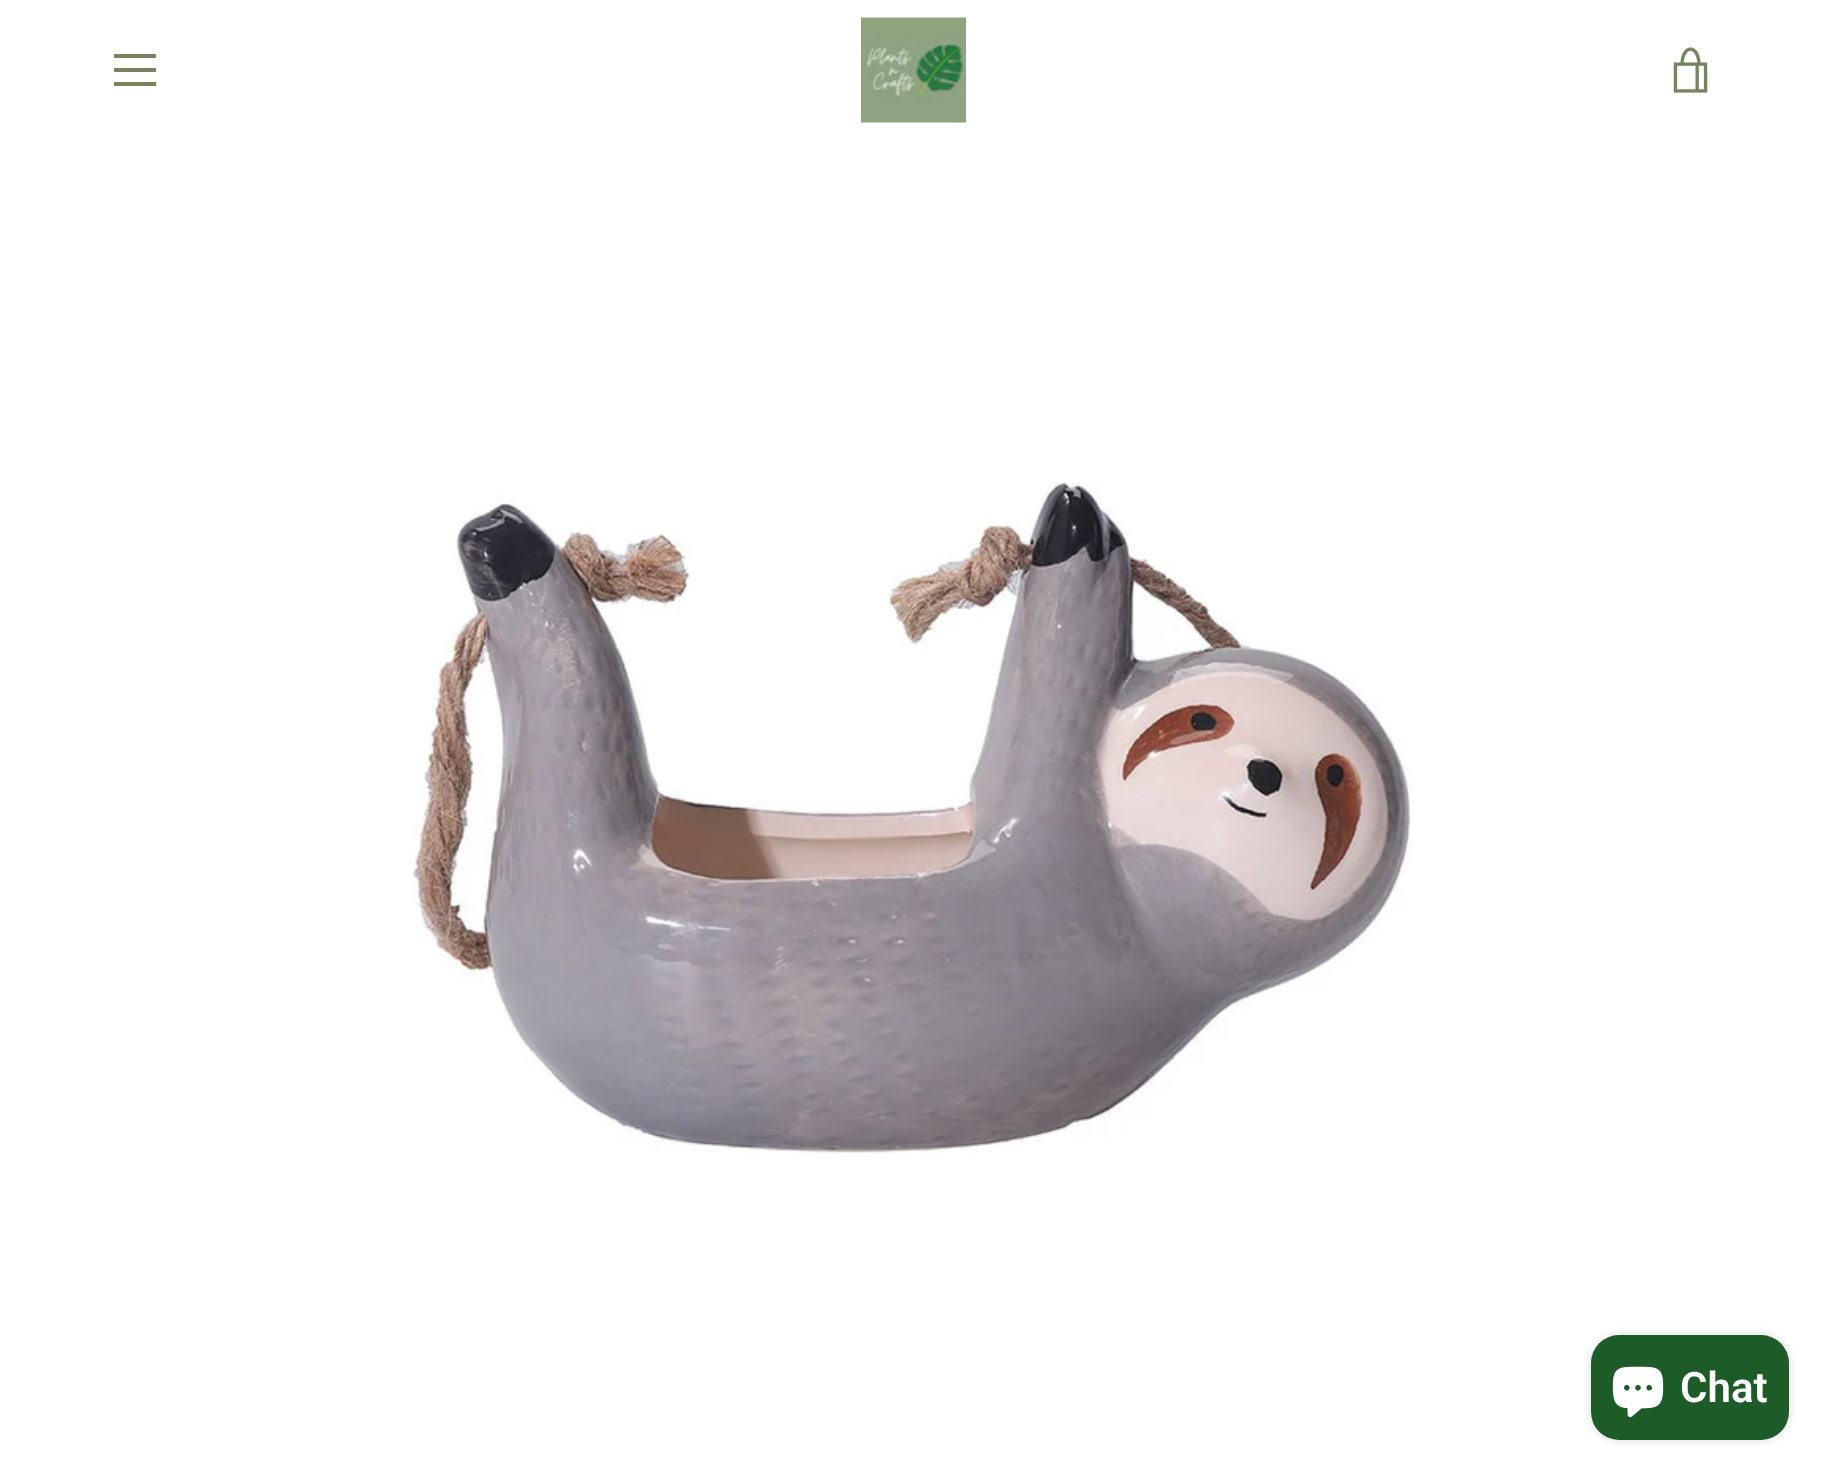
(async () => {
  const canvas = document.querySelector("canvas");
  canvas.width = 1826;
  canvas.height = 1477;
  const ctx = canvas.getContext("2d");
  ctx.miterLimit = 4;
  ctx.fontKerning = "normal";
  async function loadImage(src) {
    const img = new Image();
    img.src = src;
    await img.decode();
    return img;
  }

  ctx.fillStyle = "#ffffff";
  ctx.fillRect(0, 0, 1826, 1477);
  for (const [x, y, w, h, color] of [
    [114, 54, 42, 4, "#758560"],
    [114, 68, 42, 4, "#758560"],
    [114, 82, 42, 4, "#758560"],
  ]) {
    ctx.fillStyle = color;
    ctx.fillRect(x, y, w, h);
  }
  ctx.drawImage(await loadImage("img/1.png"), 861, 17, 105, 106);
  ctx.drawImage(await loadImage("img/2.png"), 1673, 47, 35, 46);
  ctx.drawImage(await loadImage("img/3.png"), 411, 482, 1002, 671);
  ctx.fillStyle = "rgba(0, 0, 0, 0.15)";
  ctx.filter = "blur(4.5px)";
  ctx.beginPath();
  ctx.roundRect(1591, 1335, 198, 105, 28);
  ctx.fill();
  ctx.filter = "none";
  ctx.fillStyle = "#1d5c28";
  ctx.beginPath();
  ctx.roundRect(1591, 1335, 198, 105, 28);
  ctx.fill();
  ctx.drawImage(await loadImage("img/4.png"), 1612, 1366, 52, 52);
  ctx.font = "600 42px Roboto";
  ctx.fillStyle = "#ffffff";
  ctx.fillText("Chat", 1680, 1402);
})();
